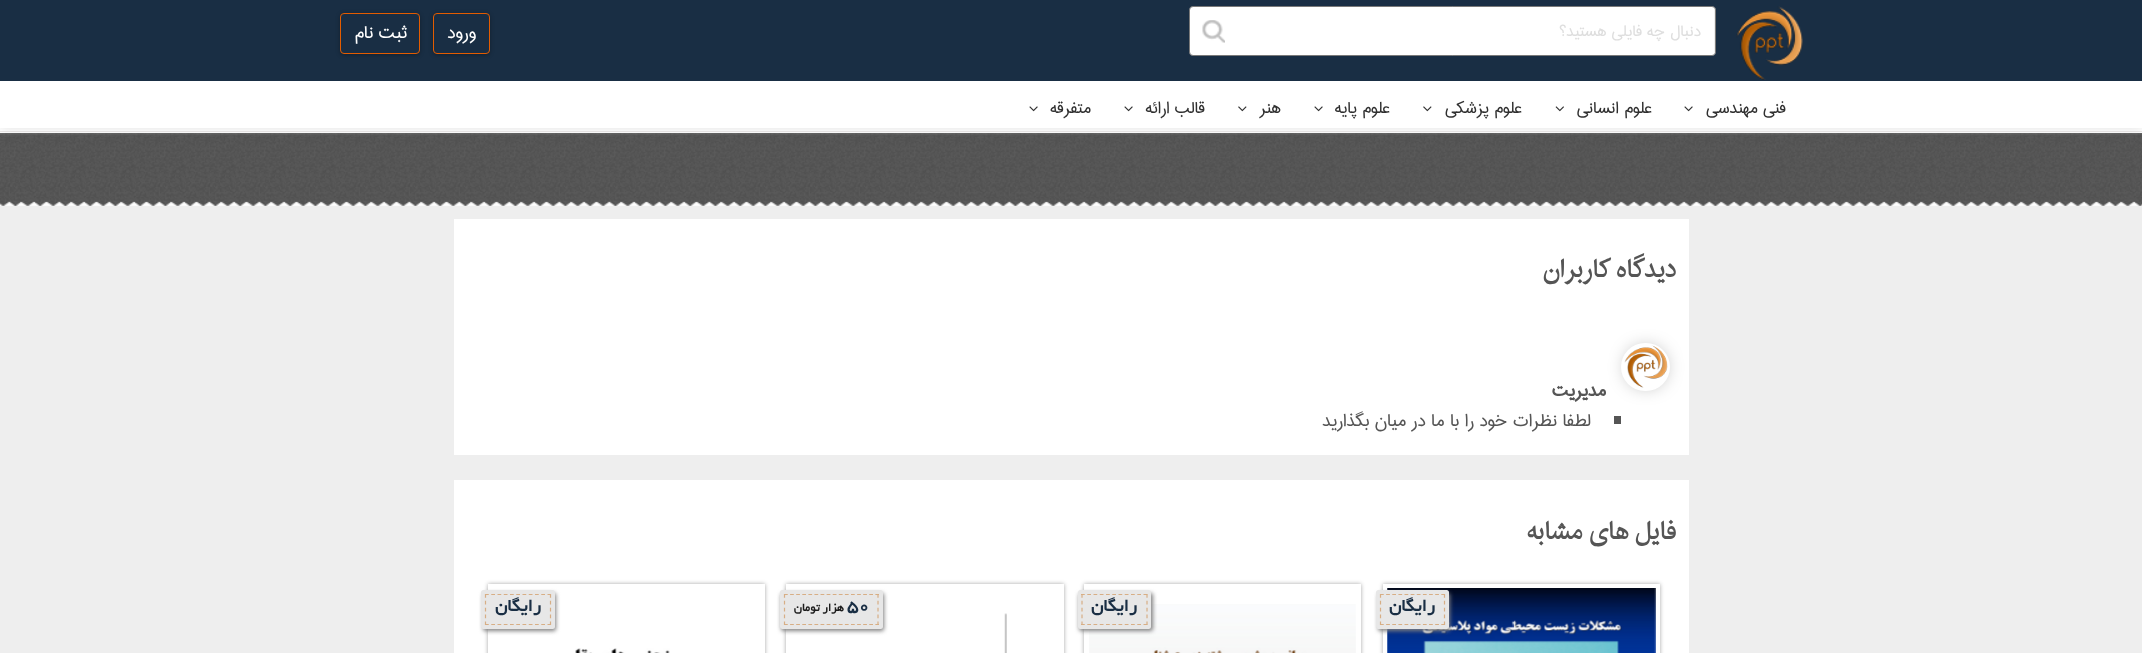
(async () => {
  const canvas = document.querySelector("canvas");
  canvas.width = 2142;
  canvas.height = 653;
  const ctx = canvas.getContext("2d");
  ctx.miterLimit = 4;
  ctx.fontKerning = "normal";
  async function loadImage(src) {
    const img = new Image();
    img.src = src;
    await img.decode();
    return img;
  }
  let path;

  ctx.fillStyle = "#eeeeee";
  ctx.fillRect(0, 0, 2142, 653);
  ctx.drawImage(await loadImage("img/6.png"), 0, 133, 2142, 73);
  ctx.fillStyle = "rgba(204, 204, 204, 0.2)";
  ctx.filter = "blur(1px)";
  ctx.beginPath();
  ctx.rect(-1, 80, 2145, 54);
  ctx.fill();
  ctx.filter = "none";
  ctx.fillStyle = "#ffffff";
  ctx.fillRect(0, 81, 2142, 52);
  ctx.fillStyle = "#edeaea";
  ctx.fillRect(0, 131, 2142, 1);
  ctx.save();
  path = new Path2D("M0 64H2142V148H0ZM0 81H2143V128H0Z");
  ctx.clip(path, "evenodd");
  ctx.fillStyle = "rgba(0, 0, 0, 0.1)";
  ctx.filter = "blur(6px)";
  ctx.beginPath();
  ctx.rect(0, 83, 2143, 46);
  ctx.fill();
  ctx.filter = "none";
  ctx.restore();
  ctx.fillStyle = "#192e44";
  ctx.fillRect(0, 0, 2142, 81);
  ctx.drawImage(await loadImage("img/1.png"), 1736, 6, 67, 74);
  ctx.fillStyle = "#ffffff";
  ctx.beginPath();
  ctx.roundRect(1189.5, 6.5, 526, 49, 3.5);
  ctx.fill();
  ctx.strokeStyle = "#797979";
  ctx.stroke();
  ctx.fillStyle = "#eeeeee";
  ctx.fillRect(1714, 10, 1, 43);
  ctx.drawImage(await loadImage("img/2.png"), 1202, 20, 23, 23);
  ctx.save();
  path = new Path2D("M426 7H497V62H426ZM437 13H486C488 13 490 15 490 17V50C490 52 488 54 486 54H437C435 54 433 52 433 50V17C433 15 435 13 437 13Z");
  ctx.clip(path, "evenodd");
  ctx.fillStyle = "rgba(0, 0, 0, 0.3)";
  ctx.filter = "blur(2px)";
  ctx.beginPath();
  ctx.roundRect(433, 14, 57, 41, 4);
  ctx.fill();
  ctx.filter = "none";
  ctx.restore();
  ctx.beginPath();
  ctx.roundRect(433.5, 13.5, 56, 40, 3.5);
  ctx.strokeStyle = "#e35c00";
  ctx.stroke();
  ctx.save();
  path = new Path2D("M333 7H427V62H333ZM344 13H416C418 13 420 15 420 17V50C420 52 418 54 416 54H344C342 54 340 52 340 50V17C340 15 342 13 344 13Z");
  ctx.clip(path, "evenodd");
  ctx.fillStyle = "rgba(0, 0, 0, 0.3)";
  ctx.filter = "blur(2px)";
  ctx.beginPath();
  ctx.roundRect(340, 14, 80, 41, 4);
  ctx.fill();
  ctx.filter = "none";
  ctx.restore();
  ctx.beginPath();
  ctx.roundRect(340.5, 13.5, 79, 40, 3.5);
  ctx.stroke();
  ctx.fillStyle = "#ffffff";
  ctx.fillRect(1013, 127, 790, 1);
  ctx.drawImage(await loadImage("img/3.png"), 1684, 106, 9, 6);
  ctx.drawImage(await loadImage("img/4.png"), 1555, 106, 9, 6);
  ctx.drawImage(await loadImage("img/5.png"), 1423, 106, 9, 6);
  ctx.drawImage(await loadImage("img/3.png"), 1314, 106, 9, 6);
  ctx.drawImage(await loadImage("img/5.png"), 1238, 106, 9, 6);
  ctx.drawImage(await loadImage("img/3.png"), 1124, 106, 9, 6);
  ctx.drawImage(await loadImage("img/3.png"), 1029, 106, 9, 6);
  ctx.fillRect(454, 219, 1235, 236);
  ctx.fillStyle = "rgba(0, 0, 0, 0.4)";
  ctx.filter = "blur(9.5px)";
  ctx.beginPath();
  ctx.roundRect(1628, 349, 36, 36, 18);
  ctx.fill();
  ctx.filter = "none";
  ctx.fillStyle = "#ffffff";
  ctx.beginPath();
  ctx.roundRect(1621, 343, 49, 48, 24);
  ctx.fill();
  ctx.drawImage(await loadImage("img/7.png"), 1624, 345, 44, 43);
  ctx.fillStyle = "#555555";
  ctx.fillRect(1614, 416, 7, 8);
  ctx.fillStyle = "#ffffff";
  ctx.fillRect(454, 480, 1235, 173);
  ctx.save();
  path = new Path2D("M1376 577H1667V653H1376ZM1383 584H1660V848H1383Z");
  ctx.clip(path, "evenodd");
  ctx.fillStyle = "rgba(0, 0, 0, 0.35)";
  ctx.filter = "blur(2px)";
  ctx.beginPath();
  ctx.rect(1383, 584, 277, 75);
  ctx.fill();
  ctx.filter = "none";
  ctx.restore();
  ctx.drawImage(await loadImage("img/8.png"), 1387, 588, 269, 65);
  ctx.drawImage(await loadImage("img/9.png"), 1387, 588, 269, 65);
  ctx.fillStyle = "#808080";
  ctx.filter = "blur(2px)";
  ctx.beginPath();
  ctx.roundRect(1378, 593, 72, 38, 2.5);
  ctx.fill();
  ctx.filter = "none";
  ctx.fillStyle = "#e7e7e7";
  ctx.beginPath();
  ctx.roundRect(1376, 590, 73, 39, 2.5);
  ctx.fill();
  path = new Path2D("M1380 594.5H1445");
  ctx.strokeStyle = "#d7ae85";
  ctx.lineWidth = 1.2;
  ctx.setLineDash([3.75, 2.38]);
  ctx.stroke(path);
  path = new Path2D("M1444.5 594V625");
  ctx.setLineDash([3.75, 3.12]);
  ctx.stroke(path);
  path = new Path2D("M1380 624.5H1445");
  ctx.setLineDash([3.75, 2.38]);
  ctx.stroke(path);
  path = new Path2D("M1380.5 594V625");
  ctx.setLineDash([3.75, 3.12]);
  ctx.stroke(path);
  ctx.save();
  path = new Path2D("M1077 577H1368V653H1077ZM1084 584H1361V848H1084Z");
  ctx.clip(path, "evenodd");
  ctx.fillStyle = "rgba(0, 0, 0, 0.35)";
  ctx.filter = "blur(2px)";
  ctx.beginPath();
  ctx.rect(1084, 584, 277, 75);
  ctx.fill();
  ctx.filter = "none";
  ctx.restore();
  ctx.drawImage(await loadImage("img/10.png"), 1089, 604, 267, 49);
  ctx.fillStyle = "#808080";
  ctx.filter = "blur(2px)";
  ctx.beginPath();
  ctx.roundRect(1079, 593, 74, 38, 2.5);
  ctx.fill();
  ctx.filter = "none";
  ctx.fillStyle = "#e7e7e7";
  ctx.beginPath();
  ctx.roundRect(1078, 590, 73, 39, 2.5);
  ctx.fill();
  path = new Path2D("M1081 594.5H1147.5");
  ctx.setLineDash([3.75, 2.5]);
  ctx.stroke(path);
  path = new Path2D("M1147 594V625");
  ctx.setLineDash([3.75, 3.12]);
  ctx.stroke(path);
  path = new Path2D("M1081 624.5H1147.5");
  ctx.setLineDash([3.75, 2.5]);
  ctx.stroke(path);
  path = new Path2D("M1082 594V625");
  ctx.setLineDash([3.75, 3.12]);
  ctx.stroke(path);
  ctx.fillStyle = "rgba(0, 0, 0, 0.35)";
  ctx.filter = "blur(2px)";
  ctx.beginPath();
  ctx.rect(786, 584, 278, 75);
  ctx.fill();
  ctx.filter = "none";
  ctx.fillStyle = "#ffffff";
  ctx.fillRect(786, 584, 278, 69);
  ctx.fillStyle = "#808080";
  ctx.filter = "blur(2px)";
  ctx.beginPath();
  ctx.roundRect(781, 593, 103, 38, 2.5);
  ctx.fill();
  ctx.filter = "none";
  ctx.fillStyle = "#e7e7e7";
  ctx.beginPath();
  ctx.roundRect(780, 590, 103, 39, 2.5);
  ctx.fill();
  path = new Path2D("M784 594.5H879");
  ctx.setLineDash([3.75, 2.34]);
  ctx.stroke(path);
  path = new Path2D("M878 594V625");
  ctx.setLineDash([3.75, 3.12]);
  ctx.stroke(path);
  path = new Path2D("M784 624.5H879");
  ctx.setLineDash([3.75, 2.34]);
  ctx.stroke(path);
  path = new Path2D("M784.5 594V625");
  ctx.setLineDash([3.75, 3.12]);
  ctx.stroke(path);
  ctx.drawImage(await loadImage("img/11.png"), 1004, 613, 3, 40);
  ctx.save();
  path = new Path2D("M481 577H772V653H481ZM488 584H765V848H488Z");
  ctx.clip(path, "evenodd");
  ctx.fillStyle = "rgba(0, 0, 0, 0.35)";
  ctx.filter = "blur(2px)";
  ctx.beginPath();
  ctx.rect(488, 584, 277, 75);
  ctx.fill();
  ctx.filter = "none";
  ctx.restore();
  ctx.fillStyle = "#808080";
  ctx.filter = "blur(2px)";
  ctx.beginPath();
  ctx.roundRect(483, 593, 73, 38, 2.5);
  ctx.fill();
  ctx.filter = "none";
  ctx.fillStyle = "#e7e7e7";
  ctx.beginPath();
  ctx.roundRect(481, 590, 74, 39, 2.5);
  ctx.fill();
  path = new Path2D("M485 594.5H551");
  ctx.setLineDash([3.75, 2.5]);
  ctx.stroke(path);
  path = new Path2D("M550.5 594V625");
  ctx.setLineDash([3.75, 3.12]);
  ctx.stroke(path);
  path = new Path2D("M485 624.5H551");
  ctx.setLineDash([3.75, 2.5]);
  ctx.stroke(path);
  path = new Path2D("M485.5 594V625");
  ctx.setLineDash([3.75, 3.12]);
  ctx.stroke(path);
  ctx.drawImage(await loadImage("img/12.png"), 575, 648, 95, 5);
  ctx.direction = "rtl";
  ctx.font = "20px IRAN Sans";
  ctx.fillStyle = "#dedede";
  ctx.fillText("دنبال چه فایلی هستید؟", 1701, 36);
  ctx.font = "22.5px IRAN Sans";
  ctx.fillStyle = "#ffffff";
  ctx.fillText("ورود", 476, 38);
  ctx.fillText("ثبت نام", 407, 38);
  ctx.font = "21px IRAN Sans";
  ctx.fillStyle = "#303030";
  for (const [text, x, y] of [
    ["فنی مهندسی", 1786, 113],
    ["علوم انسانی", 1652, 113],
    ["علوم پزشکی", 1522, 113],
    ["علوم پایه", 1390, 113],
    ["هنر", 1281, 113],
    ["قالب ارائه", 1205, 113],
    ["متفرقه", 1091, 113],
  ]) {
    ctx.fillText(text, x, y);
  }
  ctx.font = "bold 25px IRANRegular";
  ctx.fillStyle = "#555555";
  ctx.fillText("دیدگاه کاربران", 1676, 277);
  ctx.font = "bold 22.5px IRAN Sans";
  ctx.fillText("مدیریت", 1606, 396);
  ctx.font = "22.5px IRAN Sans";
  ctx.fillText("لطفا نظرات خود را با ما در میان بگذارید", 1591, 426);
  ctx.font = "bold 25px IRANRegular";
  ctx.fillText("فایل های مشابه", 1676, 539);
  ctx.font = "bold 19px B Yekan";
  ctx.fillStyle = "#192e44";
  ctx.fillText("رایگان", 1435, 611);
  ctx.fillText("رایگان", 1137, 611);
  ctx.direction = "ltr";
  ctx.fillText("50", 847, 611);
  ctx.direction = "rtl";
  ctx.font = "bold 12.5px B Yekan";
  ctx.fillStyle = "#1d1d1d";
  ctx.fillText("هزار تومان", 844, 611);
  ctx.font = "bold 19px B Yekan";
  ctx.fillStyle = "#192e44";
  ctx.fillText("رایگان", 541, 611);
})();
